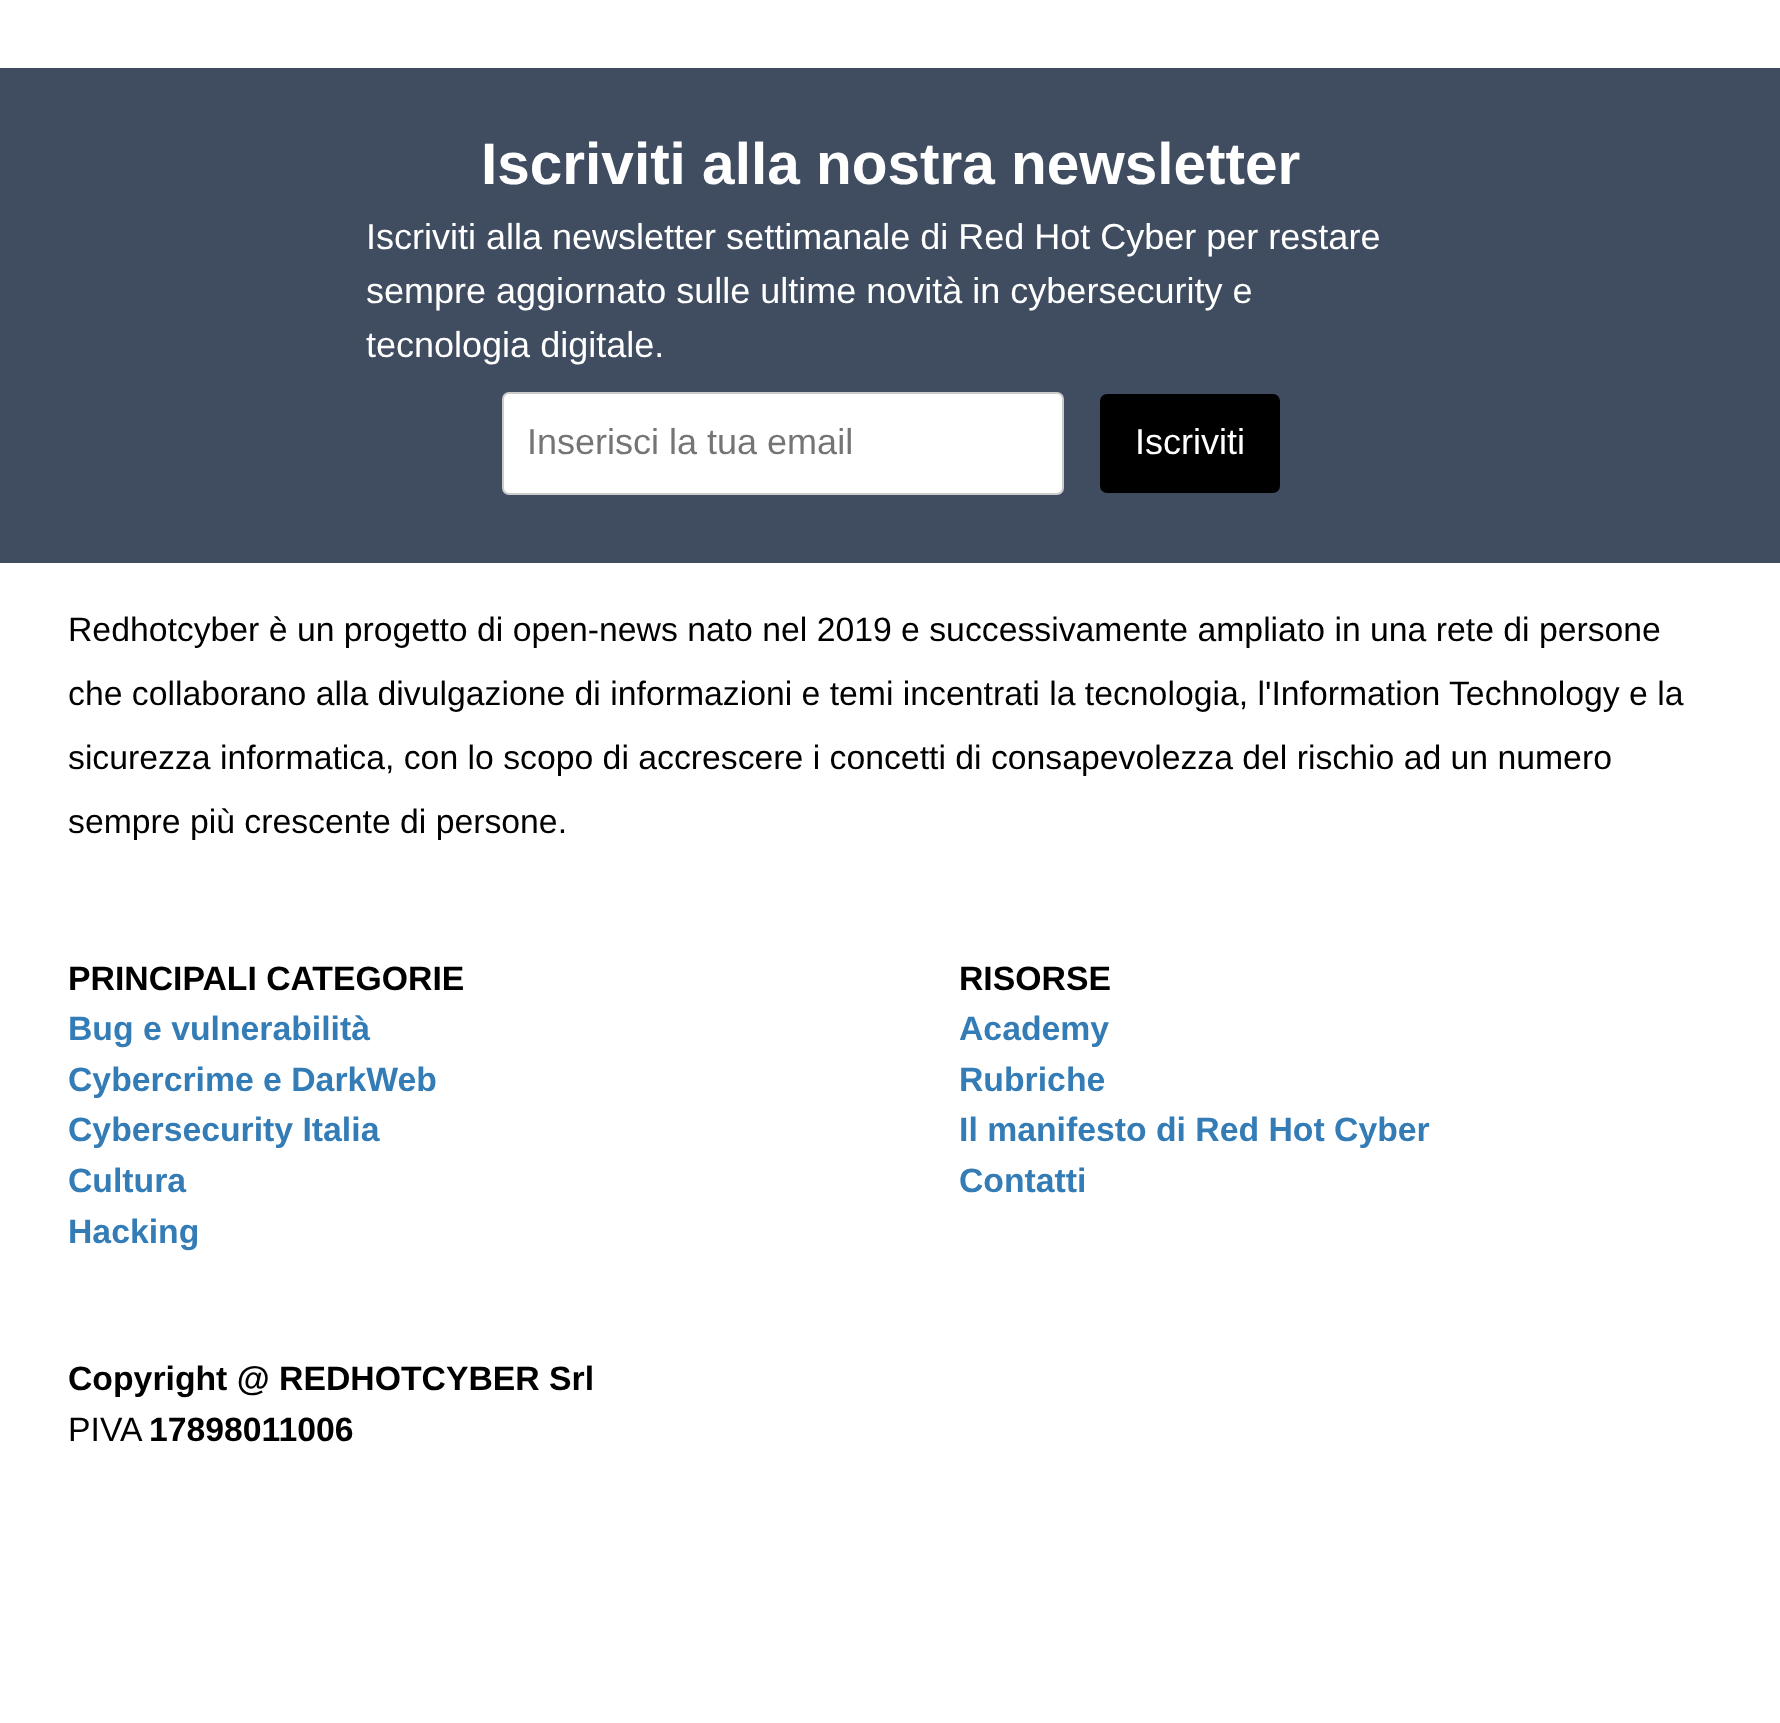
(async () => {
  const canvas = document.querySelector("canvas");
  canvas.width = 1780;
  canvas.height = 1723;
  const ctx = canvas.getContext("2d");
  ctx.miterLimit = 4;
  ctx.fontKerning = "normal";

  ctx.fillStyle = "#ffffff";
  ctx.fillRect(0, 0, 1780, 1723);
  ctx.fillStyle = "#404d61";
  ctx.fillRect(0, 68, 1780, 495);
  ctx.fillStyle = "#ffffff";
  ctx.beginPath();
  ctx.roundRect(503, 393, 560, 101, 6);
  ctx.fill();
  ctx.strokeStyle = "#cccccc";
  ctx.lineWidth = 2;
  ctx.stroke();
  ctx.fillStyle = "#000000";
  ctx.beginPath();
  ctx.roundRect(1100, 394, 180, 99, 7);
  ctx.fill();
  ctx.font = "bold 58.5px Liberation Sans";
  ctx.fillStyle = "#ffffff";
  ctx.fillText("Iscriviti alla nostra newsletter", 481, 184);
  ctx.font = "36px Liberation Sans";
  for (const [text, x, y] of [
    ["Iscriviti alla newsletter settimanale di Red Hot Cyber per restare", 366, 249],
    ["sempre aggiornato sulle ultime novità in cybersecurity e", 366, 303],
    ["tecnologia digitale.", 366, 357],
  ]) {
    ctx.fillText(text, x, y);
  }
  ctx.fillStyle = "#757575";
  ctx.fillText("Inserisci la tua email", 527, 454);
  ctx.fillStyle = "#ffffff";
  ctx.fillText("Iscriviti", 1135, 454);
  ctx.font = "33.75px Liberation Sans";
  ctx.fillStyle = "#000000";
  for (const [text, x, y] of [
    ["Redhotcyber è un progetto di open-news nato nel 2019 e successivamente ampliato in una rete di persone", 68, 641],
    ["che collaborano alla divulgazione di informazioni e temi incentrati la tecnologia, l'Information Technology e la", 68, 705],
    ["sicurezza informatica, con lo scopo di accrescere i concetti di consapevolezza del rischio ad un numero", 68, 769],
    ["sempre più crescente di persone.", 68, 833],
  ]) {
    ctx.fillText(text, x, y);
  }
  ctx.font = "bold 33.75px Liberation Sans";
  ctx.fillText("PRINCIPALI CATEGORIE", 68, 990);
  ctx.fillStyle = "#337cb6";
  for (const [text, x, y] of [
    ["Bug e vulnerabilità", 68, 1040],
    ["Cybercrime e DarkWeb", 68, 1091],
    ["Cybersecurity Italia", 68, 1141],
    ["Cultura", 68, 1192],
    ["Hacking", 68, 1243],
  ]) {
    ctx.fillText(text, x, y);
  }
  ctx.fillStyle = "#000000";
  ctx.fillText("RISORSE", 959, 990);
  ctx.fillStyle = "#337cb6";
  for (const [text, x, y] of [
    ["Academy", 959, 1040],
    ["Rubriche", 959, 1091],
    ["Il manifesto di Red Hot Cyber", 959, 1141],
    ["Contatti", 959, 1192],
  ]) {
    ctx.fillText(text, x, y);
  }
  ctx.fillStyle = "#000000";
  ctx.fillText("Copyright @ REDHOTCYBER Srl", 68, 1390);
  ctx.font = "33.75px Liberation Sans";
  ctx.fillText("PIVA", 68, 1441);
  ctx.font = "bold 33.75px Liberation Sans";
  ctx.fillText("17898011006", 149, 1441);
})();
